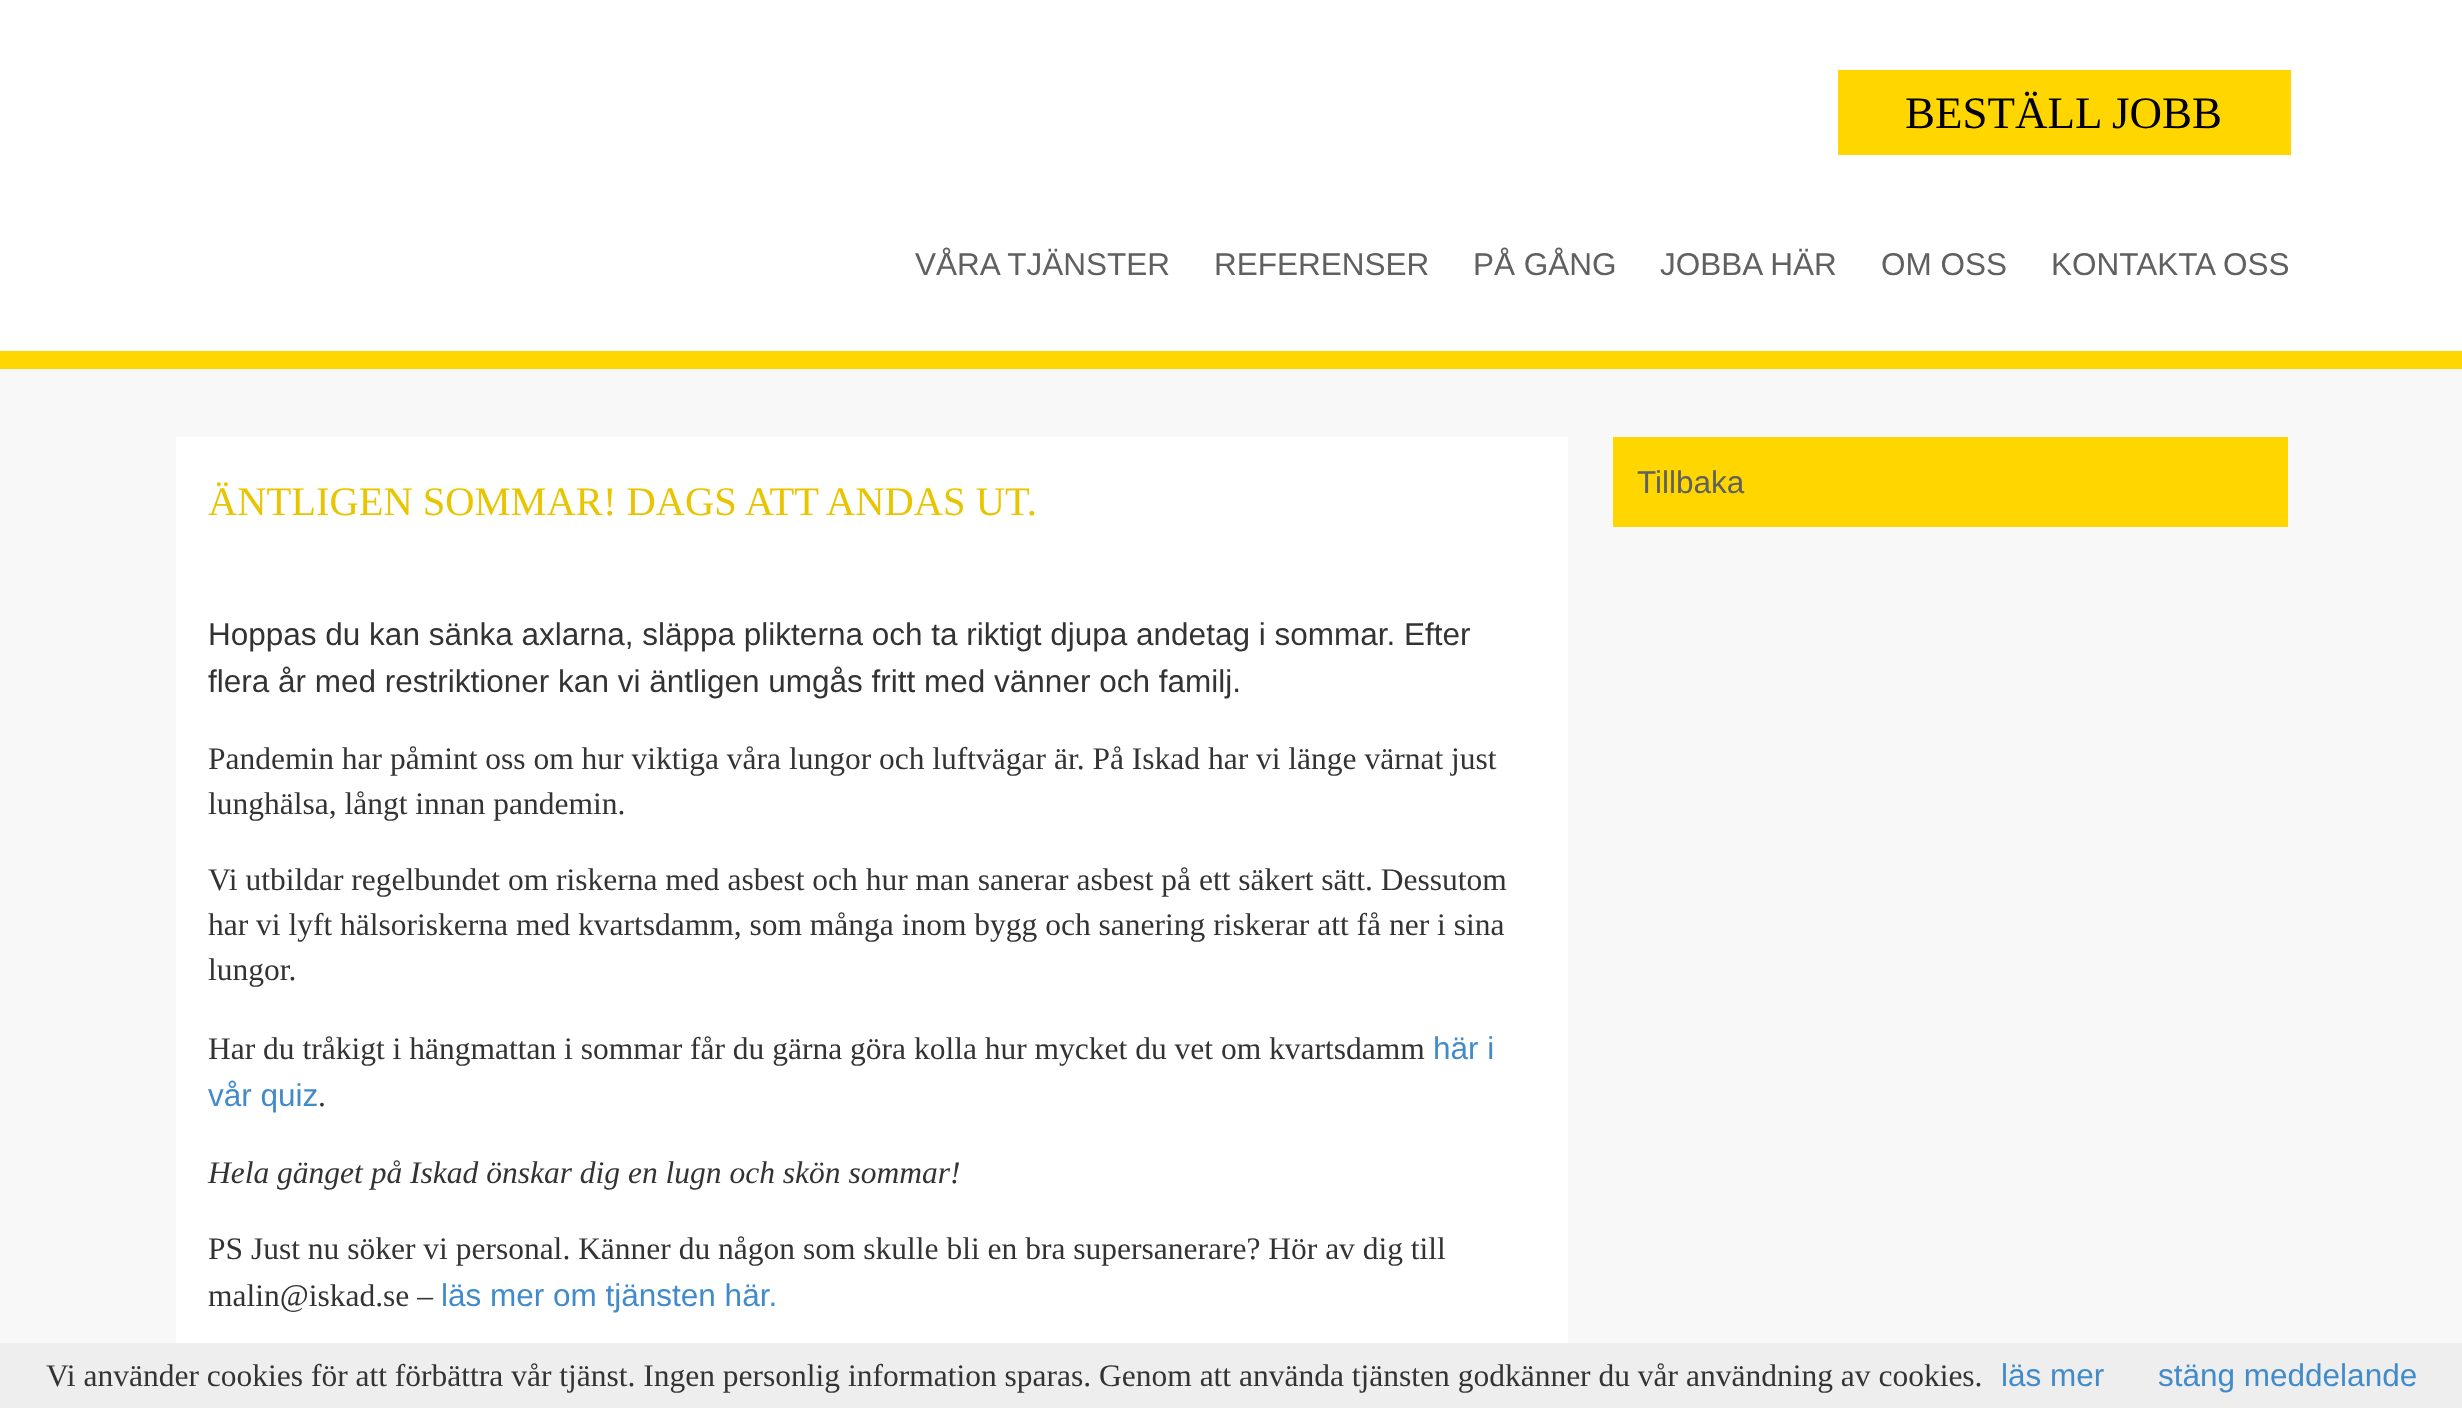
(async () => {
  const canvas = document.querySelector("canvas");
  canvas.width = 2462;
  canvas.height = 1408;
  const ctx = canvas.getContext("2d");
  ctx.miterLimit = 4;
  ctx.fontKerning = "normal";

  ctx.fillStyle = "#f8f8f8";
  ctx.fillRect(0, 0, 2462, 1408);
  for (const [x, y, w, h, color] of [
    [0, 0, 2462, 351, "#ffffff"],
    [1838, 70, 453, 85, "#ffd600"],
    [0, 351, 2462, 18, "#ffd600"],
    [176, 437, 1392, 906, "#ffffff"],
    [1613, 437, 675, 90, "#ffd600"],
    [0, 1343, 2462, 65, "#eeeeee"],
  ]) {
    ctx.fillStyle = color;
    ctx.fillRect(x, y, w, h);
  }
  ctx.font = "45px Liberation Serif";
  ctx.fillStyle = "#000000";
  ctx.fillText("BESTÄLL JOBB", 1905, 128);
  ctx.font = "31.5px Liberation Sans";
  ctx.fillStyle = "#606060";
  for (const [text, x, y] of [
    ["VÅRA TJÄNSTER", 915, 275],
    ["REFERENSER", 1214, 275],
    ["PÅ GÅNG", 1473, 275],
    ["JOBBA HÄR", 1660, 275],
    ["OM OSS", 1881, 275],
    ["KONTAKTA OSS", 2051, 275],
  ]) {
    ctx.fillText(text, x, y);
  }
  ctx.font = "40.5px Liberation Serif";
  ctx.fillStyle = "#e9c400";
  ctx.fillText("ÄNTLIGEN SOMMAR! DAGS ATT ANDAS UT.", 208, 515);
  ctx.font = "31.5px Liberation Sans";
  ctx.fillStyle = "#333333";
  ctx.fillText("Hoppas du kan sänka axlarna, släppa plikterna och ta riktigt djupa andetag i sommar. Efter", 208, 645);
  ctx.fillText("flera år med restriktioner kan vi äntligen umgås fritt med vänner och familj.", 208, 692);
  ctx.font = "31.5px Liberation Serif";
  for (const [text, x, y] of [
    ["Pandemin har påmint oss om hur viktiga våra lungor och luftvägar är. På Iskad har vi länge värnat just", 208, 769],
    ["lunghälsa, långt innan pandemin.", 208, 814],
    ["Vi utbildar regelbundet om riskerna med asbest och hur man sanerar asbest på ett säkert sätt. Dessutom", 208, 890],
    ["har vi lyft hälsoriskerna med kvartsdamm, som många inom bygg och sanering riskerar att få ner i sina", 208, 935],
    ["lungor.", 208, 980],
    ["Har du tråkigt i hängmattan i sommar får du gärna göra kolla hur mycket du vet om kvartsdamm", 208, 1059],
  ]) {
    ctx.fillText(text, x, y);
  }
  ctx.font = "31.5px Liberation Sans";
  ctx.fillStyle = "#428bca";
  ctx.fillText("här i", 1433, 1059);
  ctx.fillText("vår quiz", 208, 1106);
  ctx.font = "31.5px Liberation Serif";
  ctx.fillStyle = "#333333";
  ctx.fillText(".", 318, 1106);
  ctx.font = "italic 31.5px Liberation Serif";
  ctx.fillText("Hela gänget på Iskad önskar dig en lugn och skön sommar!", 208, 1183);
  ctx.font = "31.5px Liberation Serif";
  ctx.fillText("PS Just nu söker vi personal. Känner du någon som skulle bli en bra supersanerare? Hör av dig till", 208, 1259);
  ctx.fillText("malin@iskad.se –", 208, 1306);
  ctx.font = "31.5px Liberation Sans";
  ctx.fillStyle = "#428bca";
  ctx.fillText("läs mer om tjänsten här.", 441, 1306);
  ctx.fillStyle = "#606060";
  ctx.fillText("Tillbaka", 1637, 493);
  ctx.font = "31.5px Liberation Serif";
  ctx.fillStyle = "#333333";
  ctx.fillText("Vi använder cookies för att förbättra vår tjänst. Ingen personlig information sparas. Genom att använda tjänsten godkänner du vår användning av cookies.", 46, 1386);
  ctx.font = "31.5px Liberation Sans";
  ctx.fillStyle = "#428bca";
  ctx.fillText("läs mer", 2001, 1386);
  ctx.fillText("stäng meddelande", 2158, 1386);
})();
